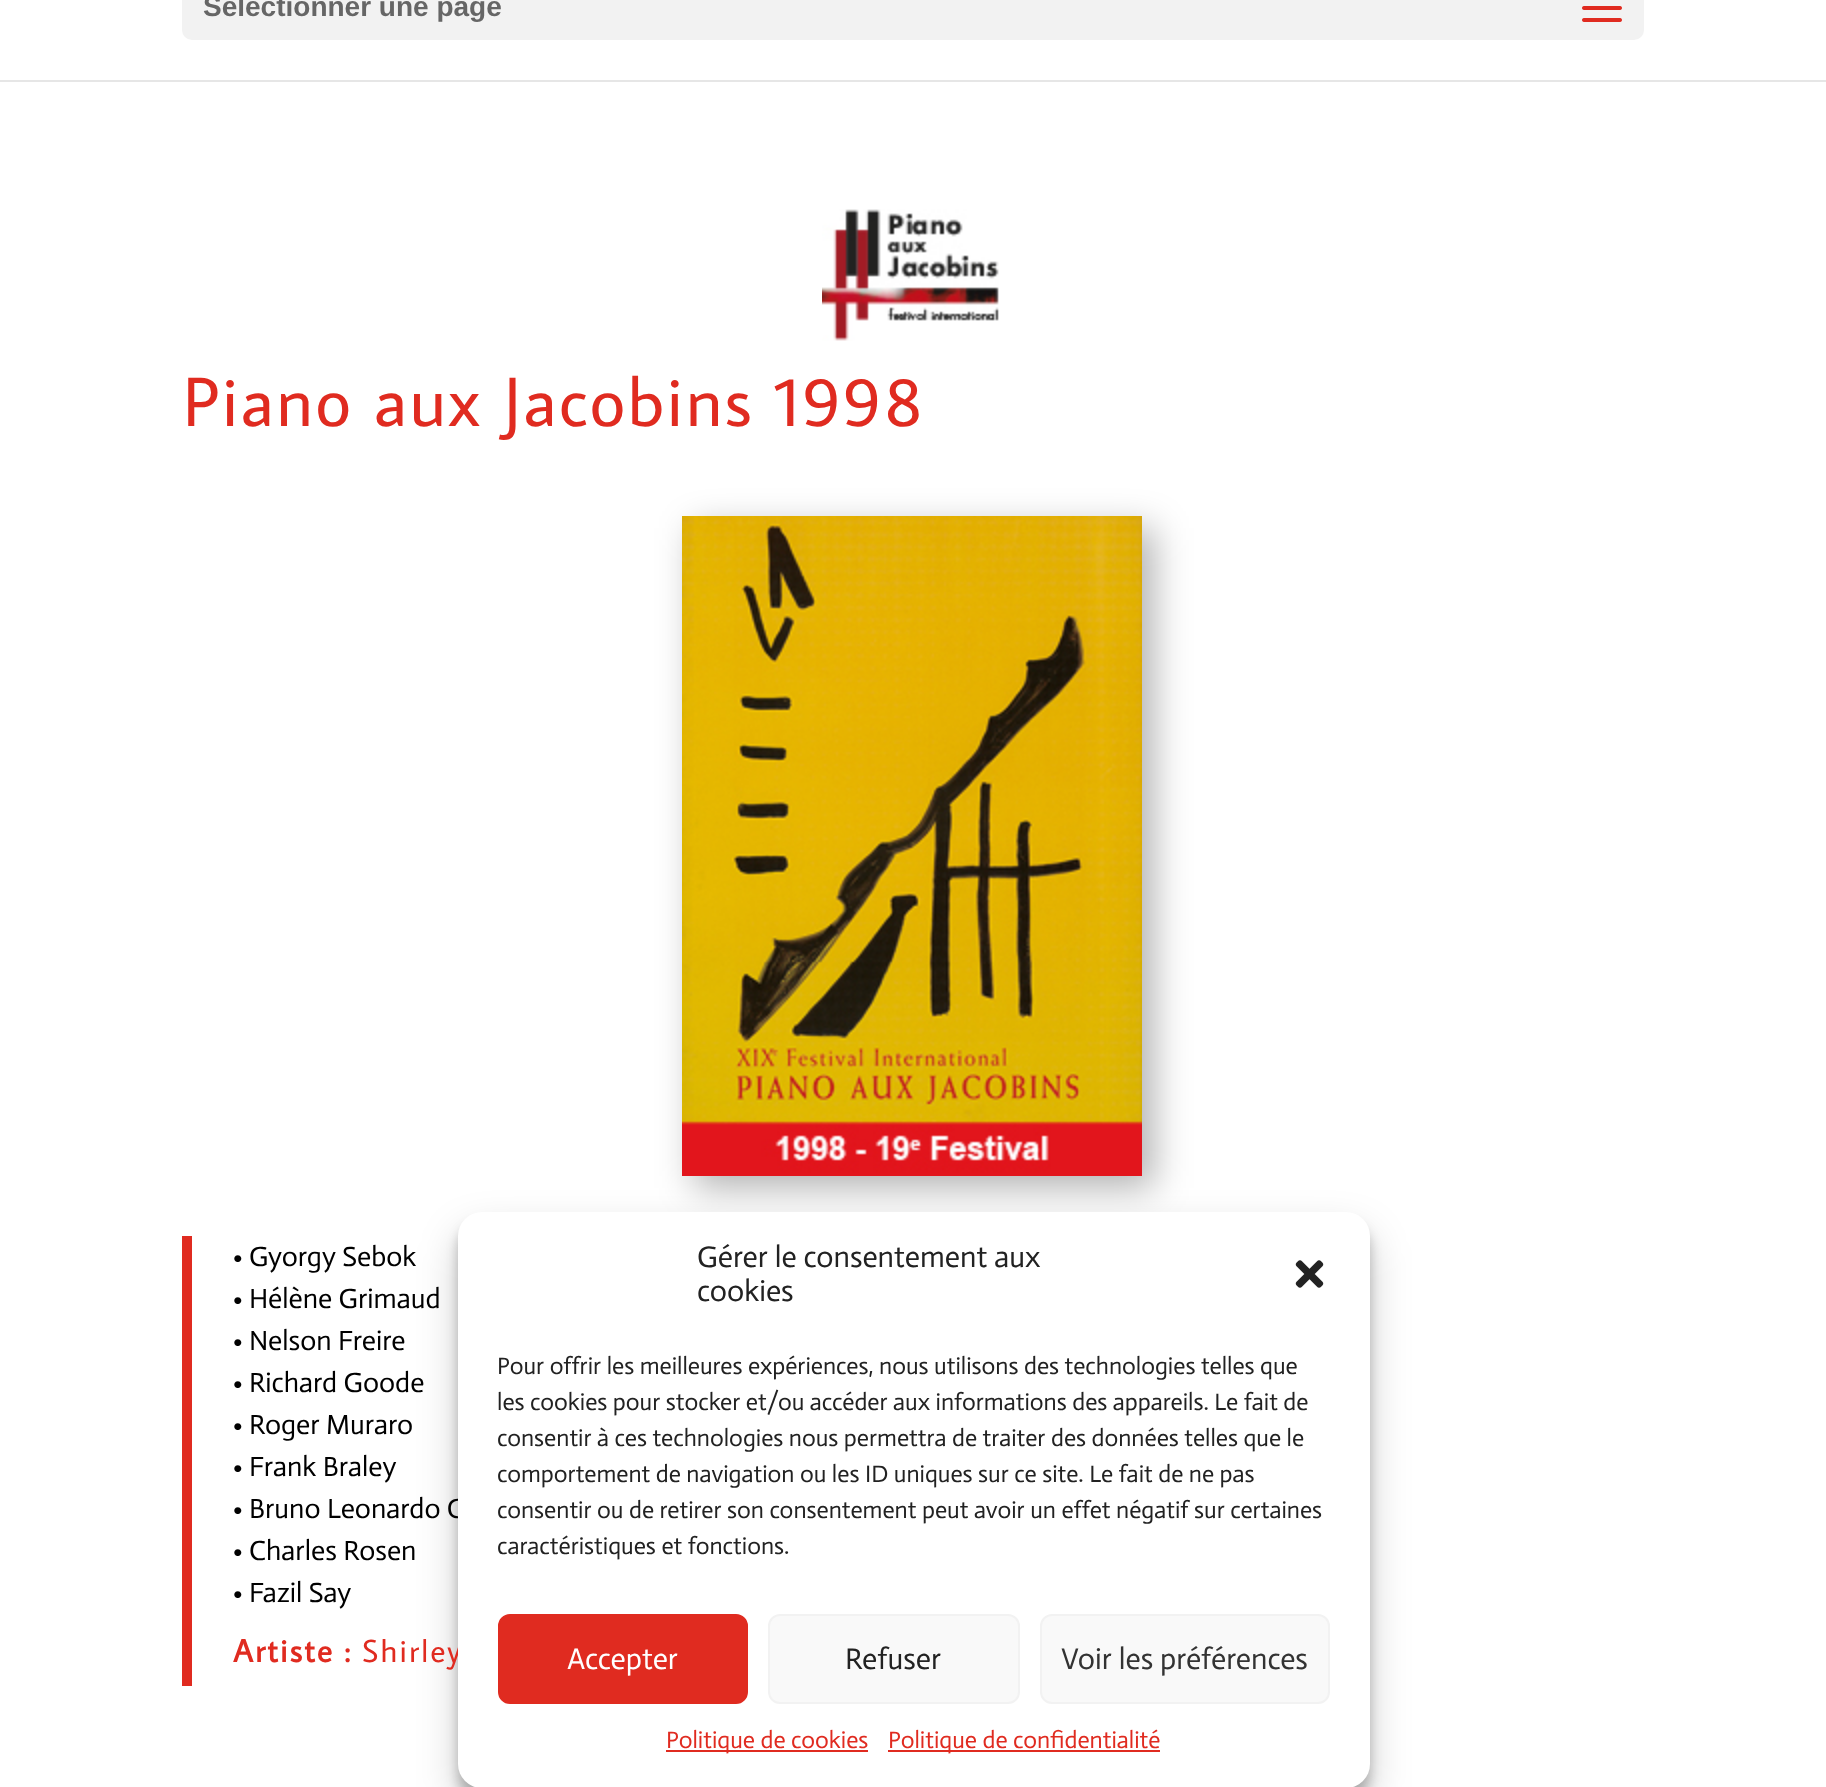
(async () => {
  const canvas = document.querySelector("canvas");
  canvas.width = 1826;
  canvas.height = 1787;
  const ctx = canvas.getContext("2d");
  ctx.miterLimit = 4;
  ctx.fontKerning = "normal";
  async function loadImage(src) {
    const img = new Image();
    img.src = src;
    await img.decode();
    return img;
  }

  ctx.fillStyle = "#ffffff";
  ctx.fillRect(0, 0, 1826, 1787);
  ctx.fillStyle = "#e6e6e6";
  ctx.fillRect(0, 80, 1826, 2);
  ctx.fillStyle = "#f2f2f2";
  ctx.beginPath();
  ctx.roundRect(182, -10, 1462, 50, 10);
  ctx.fill();
  ctx.drawImage(await loadImage("img/1.png"), 1582, 6, 40, 16);
  ctx.drawImage(await loadImage("img/2.png"), 822, 209, 177, 132);
  ctx.fillStyle = "rgba(0, 0, 0, 0.3)";
  ctx.filter = "blur(18px)";
  ctx.beginPath();
  ctx.rect(694, 528, 460, 660);
  ctx.fill();
  ctx.filter = "none";
  ctx.drawImage(await loadImage("img/3.png"), 682, 516, 460, 660);
  ctx.fillStyle = "#e02b20";
  ctx.fillRect(182, 1236, 10, 450);
  ctx.fillStyle = "rgba(0, 0, 0, 0.23)";
  ctx.filter = "blur(6px)";
  ctx.beginPath();
  ctx.roundRect(458, 1224, 912, 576, 24);
  ctx.fill();
  ctx.filter = "none";
  ctx.fillStyle = "rgba(0, 0, 0, 0.19)";
  ctx.filter = "blur(20px)";
  ctx.beginPath();
  ctx.roundRect(458, 1232, 912, 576, 24);
  ctx.fill();
  ctx.filter = "none";
  ctx.font = "bold 28px Liberation Sans";
  ctx.fillStyle = "#666666";
  ctx.fillText("Sélectionner une page", 203, 16);
  ctx.letterSpacing = "2px";
  ctx.font = "70px Average Sans";
  ctx.fillStyle = "#e02b20";
  ctx.fillText("Piano aux Jacobins 1998", 183, 426);
  ctx.letterSpacing = "0px";
  ctx.font = "28px Actor";
  ctx.fillStyle = "#000000";
  for (const [text, x, y] of [
    ["• Gyorgy Sebok", 233, 1266],
    ["• Hélène Grimaud", 233, 1308],
    ["• Nelson Freire", 233, 1350],
    ["• Richard Goode", 233, 1392],
    ["• Roger Muraro", 233, 1434],
    ["• Frank Braley", 233, 1476],
    ["• Bruno Leonardo G", 233, 1518],
    ["• Charles Rosen", 233, 1560],
    ["• Fazil Say", 233, 1602],
  ]) {
    ctx.fillText(text, x, y);
  }
  ctx.letterSpacing = "2px";
  ctx.font = "bold 32px Average Sans";
  ctx.fillStyle = "#e02b20";
  ctx.fillText("Artiste :", 233, 1662);
  ctx.font = "32px Average Sans";
  ctx.fillText("Shirley", 362, 1662);
  ctx.fillStyle = "#ffffff";
  ctx.beginPath();
  ctx.roundRect(458, 1212, 912, 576, 24);
  ctx.fill();
  ctx.letterSpacing = "0px";
  ctx.font = "30px Actor";
  ctx.fillStyle = "#222222";
  ctx.fillText("Gérer le consentement aux", 697, 1267);
  ctx.fillText("cookies", 697, 1301);
  ctx.drawImage(await loadImage("img/4.png"), 1295, 1260, 29, 28);
  ctx.font = "24px Actor";
  ctx.fillText("Pour offrir les meilleures expériences, nous utilisons des technologies telles que", 497, 1374);
  ctx.fillText("les cookies pour stocker et/ou accéder aux informations des appareils. Le fait de", 497, 1410);
  ctx.save();
  ctx.beginPath();
  ctx.rect(498, 1348, 832, 226);
  ctx.clip();
  for (const [text, x, y] of [
    ["consentir à ces technologies nous permettra de traiter des données telles que le", 497, 1446],
    ["comportement de navigation ou les ID uniques sur ce site. Le fait de ne pas", 497, 1482],
    ["consentir ou de retirer son consentement peut avoir un effet négatif sur certaines", 497, 1518],
    ["caractéristiques et fonctions.", 497, 1554],
  ]) {
    ctx.fillText(text, x, y);
  }
  ctx.restore();
  ctx.fillStyle = "#e02b20";
  ctx.beginPath();
  ctx.roundRect(499, 1615, 248, 88, 11);
  ctx.fill();
  ctx.strokeStyle = "#e02b20";
  ctx.lineWidth = 2;
  ctx.stroke();
  ctx.font = "30px Actor";
  ctx.fillStyle = "#ffffff";
  ctx.fillText("Accepter", 567, 1669);
  ctx.fillStyle = "#f9f9f9";
  ctx.beginPath();
  ctx.roundRect(769, 1615, 250, 88, 11);
  ctx.fill();
  ctx.strokeStyle = "#f2f2f2";
  ctx.stroke();
  ctx.fillStyle = "#222222";
  ctx.fillText("Refuser", 845, 1669);
  ctx.fillStyle = "#f9f9f9";
  ctx.beginPath();
  ctx.roundRect(1041, 1615, 288, 88, 11);
  ctx.fill();
  ctx.stroke();
  ctx.fillStyle = "#333333";
  ctx.fillText("Voir les préférences", 1061, 1669);
  ctx.fillStyle = "#e02b20";
  ctx.fillRect(666, 1750, 202, 2);
  ctx.font = "24px Actor";
  ctx.fillText("Politique de cookies", 666, 1748);
  ctx.fillRect(888, 1750, 272, 2);
  ctx.fillText("Politique de confidentialité", 888, 1748);
})();
